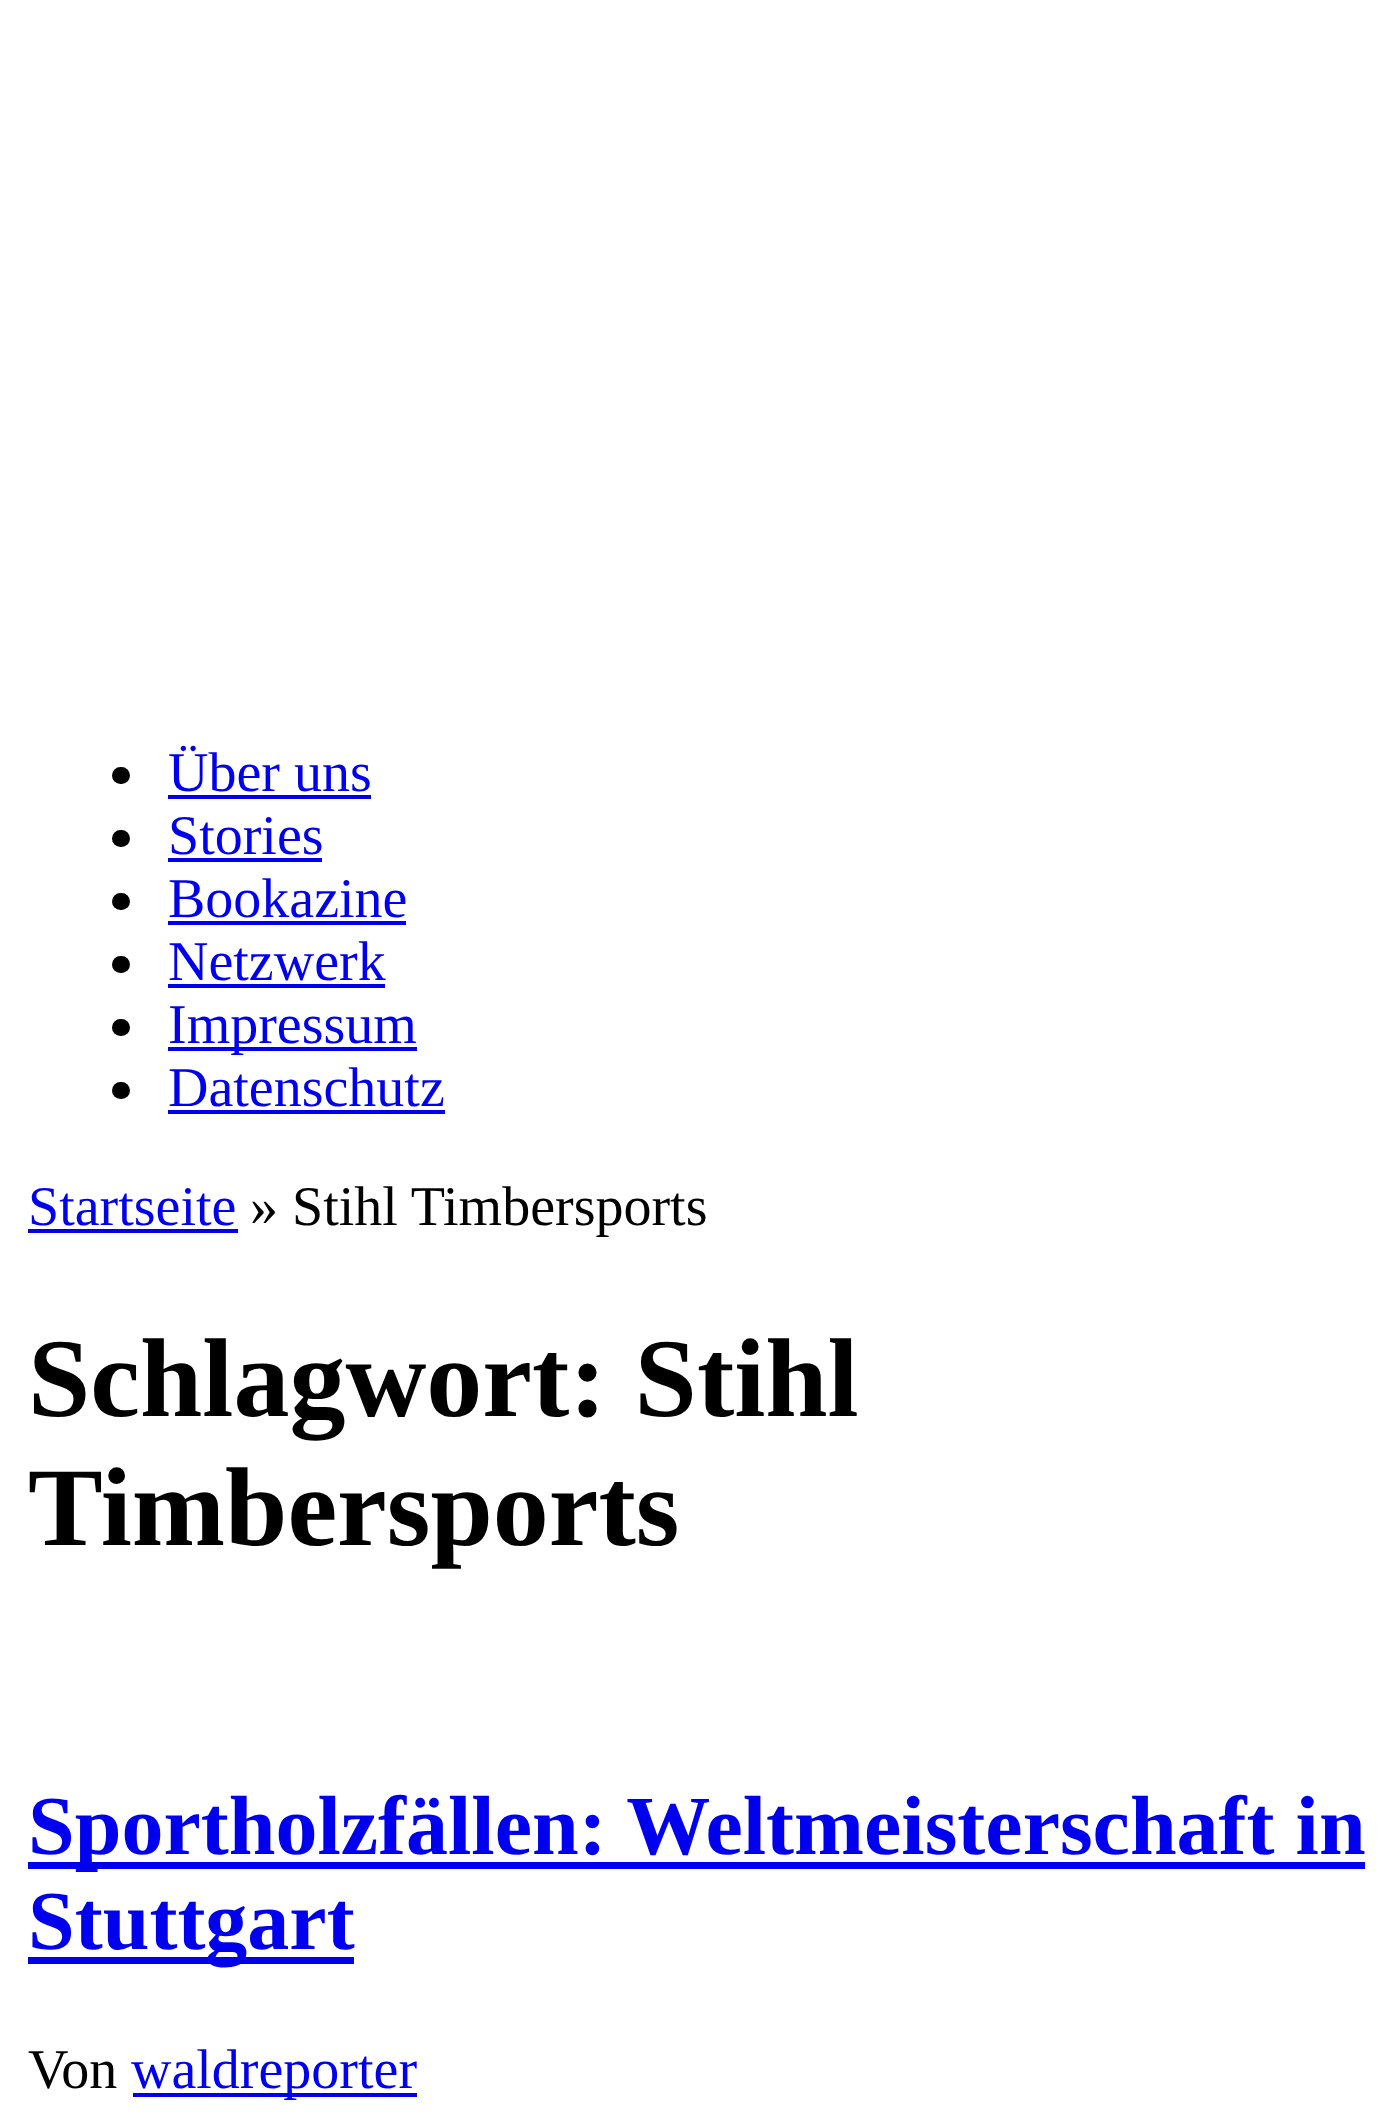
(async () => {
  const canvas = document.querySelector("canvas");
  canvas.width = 1395;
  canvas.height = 2124;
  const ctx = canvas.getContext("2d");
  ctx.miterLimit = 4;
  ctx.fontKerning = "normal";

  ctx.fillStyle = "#ffffff";
  ctx.fillRect(0, 0, 1395, 2124);
  ctx.fillStyle = "#000000";
  ctx.beginPath();
  ctx.roundRect(112, 767, 18, 17, 8.5);
  ctx.fill();
  ctx.fillStyle = "#0000ee";
  ctx.fillRect(168, 795, 203, 4);
  ctx.fillStyle = "#000000";
  ctx.beginPath();
  ctx.roundRect(112, 830, 18, 17, 8.5);
  ctx.fill();
  ctx.fillStyle = "#0000ee";
  ctx.fillRect(168, 858, 154, 4);
  ctx.fillStyle = "#000000";
  ctx.beginPath();
  ctx.roundRect(112, 893, 18, 17, 8.5);
  ctx.fill();
  ctx.fillStyle = "#0000ee";
  ctx.fillRect(168, 921, 238, 4);
  ctx.fillStyle = "#000000";
  ctx.beginPath();
  ctx.roundRect(112, 956, 18, 17, 8.5);
  ctx.fill();
  ctx.fillStyle = "#0000ee";
  ctx.fillRect(168, 984, 217, 4);
  ctx.fillStyle = "#000000";
  ctx.beginPath();
  ctx.roundRect(112, 1019, 18, 17, 8.5);
  ctx.fill();
  ctx.fillStyle = "#0000ee";
  ctx.fillRect(168, 1047, 249, 4);
  ctx.fillStyle = "#000000";
  ctx.beginPath();
  ctx.roundRect(112, 1082, 18, 17, 8.5);
  ctx.fill();
  for (const [x, y, w, h, color] of [
    [168, 1110, 277, 4, "#0000ee"],
    [28, 1229, 210, 4, "#0000ee"],
    [28, 1862, 1337, 7, "#0000ee"],
    [28, 1957, 326, 7, "#0000ee"],
    [133, 2093, 284, 4, "#0000ee"],
  ]) {
    ctx.fillStyle = color;
    ctx.fillRect(x, y, w, h);
  }
  ctx.font = "56px Liberation Serif";
  for (const [text, x, y] of [
    ["Über uns", 168, 791],
    ["Stories", 168, 854],
    ["Bookazine", 168, 917],
    ["Netzwerk", 168, 980],
    ["Impressum", 168, 1043],
    ["Datenschutz", 168, 1106],
    ["Startseite", 28, 1225],
  ]) {
    ctx.fillText(text, x, y);
  }
  ctx.fillStyle = "#000000";
  ctx.fillText("» Stihl Timbersports", 250, 1225);
  ctx.font = "bold 112px Liberation Serif";
  ctx.fillText("Schlagwort: Stihl", 28, 1416);
  ctx.fillText("Timbersports", 28, 1545);
  ctx.font = "bold 84px Liberation Serif";
  ctx.fillStyle = "#0000ee";
  ctx.fillText("Sportholzfällen: Weltmeisterschaft in", 28, 1854);
  ctx.fillText("Stuttgart", 28, 1949);
  ctx.font = "56px Liberation Serif";
  ctx.fillStyle = "#000000";
  ctx.fillText("Von", 28, 2088);
  ctx.fillStyle = "#0000ee";
  ctx.fillText("waldreporter", 131, 2088);
})();
